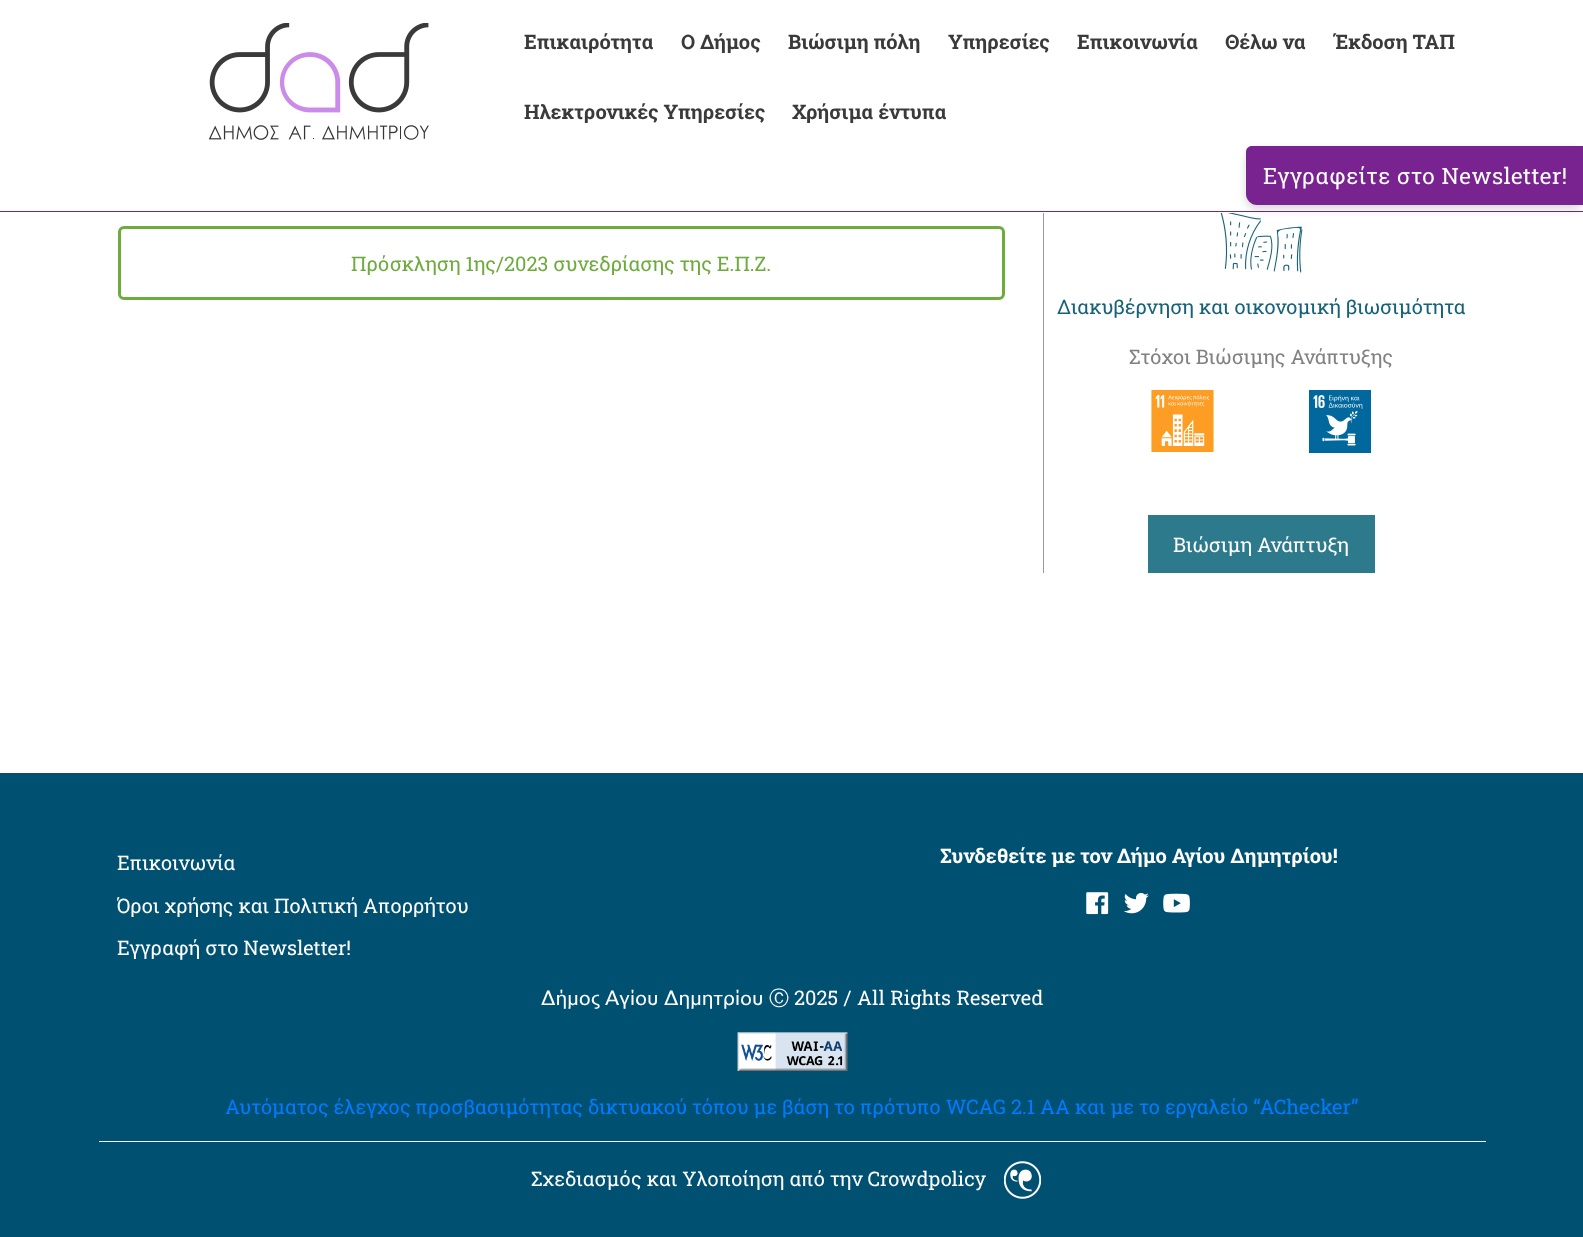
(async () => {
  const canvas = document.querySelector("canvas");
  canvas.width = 1583;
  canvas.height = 1237;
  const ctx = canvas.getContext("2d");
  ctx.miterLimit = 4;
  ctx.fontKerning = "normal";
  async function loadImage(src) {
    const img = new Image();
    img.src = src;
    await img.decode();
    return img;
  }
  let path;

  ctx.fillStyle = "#ffffff";
  ctx.fillRect(0, 0, 1583, 1237);
  ctx.fillStyle = "#78238f";
  ctx.fillRect(0, 211, 1583, 1);
  ctx.drawImage(await loadImage("img/1.png"), 209, 23, 220, 117);
  ctx.drawImage(await loadImage("img/2.png"), 1220, 213, 83, 60);
  ctx.fillStyle = "rgba(0, 0, 0, 0.16)";
  ctx.filter = "blur(4px)";
  ctx.beginPath();
  ctx.roundRect(1246, 150, 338, 59, 11);
  ctx.fill();
  ctx.filter = "none";
  ctx.fillStyle = "#78238f";
  path = new Path2D("M1252 146H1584V205H1257C1251 205 1246 200 1246 194V152C1246 148.5 1248.5 146 1252 146Z");
  ctx.fill(path);
  ctx.beginPath();
  ctx.roundRect(119.5, 227.5, 884, 71, 4.5);
  ctx.strokeStyle = "#6dab3c";
  ctx.lineWidth = 3;
  ctx.stroke();
  ctx.fillStyle = "#999999";
  ctx.fillRect(1043, 213, 1, 360);
  ctx.drawImage(await loadImage("img/3.png"), 1151, 390, 63, 62);
  ctx.drawImage(await loadImage("img/4.png"), 1309, 390, 62, 63);
  ctx.fillStyle = "#2e7a8d";
  ctx.fillRect(1148, 515, 227, 58);
  ctx.fillStyle = "#005072";
  ctx.fillRect(0, 773, 1583, 464);
  ctx.drawImage(await loadImage("img/5.png"), 1086, 892, 23, 23);
  ctx.drawImage(await loadImage("img/6.png"), 1124, 893, 25, 21);
  ctx.drawImage(await loadImage("img/7.png"), 1163, 893, 27, 20);
  ctx.drawImage(await loadImage("img/8.png"), 737, 1032, 111, 39);
  ctx.fillStyle = "#ffffff";
  ctx.fillRect(99, 1141, 1387, 1);
  ctx.drawImage(await loadImage("img/9.png"), 1004, 1161, 37, 38);
  ctx.font = "bold 20px Roboto Slab";
  ctx.fillStyle = "#3a3a3a";
  for (const [text, x, y] of [
    ["Επικαιρότητα", 524, 49],
    ["Ο Δήμος", 681, 49],
    ["Βιώσιμη πόλη", 788, 49],
    ["Υπηρεσίες", 948, 49],
    ["Επικοινωνία", 1077, 49],
    ["Θέλω να", 1225, 49],
    ["Έκδοση ΤΑΠ", 1333, 49],
    ["Ηλεκτρονικές Υπηρεσίες", 524, 119],
    ["Χρήσιμα έντυπα", 792, 119],
  ]) {
    ctx.fillText(text, x, y);
  }
  ctx.letterSpacing = "0.45px";
  ctx.font = "22.5px Roboto Slab";
  ctx.fillStyle = "#ffffff";
  ctx.fillText("Εγγραφείτε στο Newsletter!", 1263, 184);
  ctx.letterSpacing = "0px";
  ctx.font = "20px Roboto Slab";
  ctx.fillStyle = "#6dab3c";
  ctx.fillText("Πρόσκληση 1ης/2023 συνεδρίασης της Ε.Π.Ζ.", 351, 271);
  ctx.fillStyle = "#16627a";
  ctx.fillText("Διακυβέρνηση και οικονομική βιωσιμότητα", 1057, 314);
  ctx.fillStyle = "#828282";
  ctx.fillText("Στόχοι Βιώσιμης Ανάπτυξης", 1129, 364);
  ctx.fillStyle = "#ffffff";
  for (const [text, x, y] of [
    ["Βιώσιμη Ανάπτυξη", 1173, 552],
    ["Επικοινωνία", 117, 870],
    ["Όροι χρήσης και Πολιτική Απορρήτου", 117, 913],
    ["Εγγραφή στο Newsletter!", 117, 955],
  ]) {
    ctx.fillText(text, x, y);
  }
  ctx.font = "bold 20px Roboto Slab";
  ctx.fillText("Συνδεθείτε με τον Δήμο Αγίου Δημητρίου!", 940, 863);
  ctx.font = "500 20px WenQuanYi Zen Hei";
  for (const [text, x, y] of [
    ["Δήμος", 541, 1005],
    ["Αγίου", 605, 1005],
    ["Δημητρίου", 664, 1005],
    ["Ⓒ", 769, 1005],
  ]) {
    ctx.fillText(text, x, y);
  }
  ctx.wordSpacing = "0.5px";
  ctx.font = "20px Roboto Slab";
  ctx.fillText("2025 / All Rights Reserved", 794, 1005);
  ctx.wordSpacing = "0px";
  ctx.fillStyle = "#007bff";
  ctx.fillText("Αυτόματος έλεγχος προσβασιμότητας δικτυακού τόπου με βάση το πρότυπο WCAG 2.1 AA και με το εργαλείο “AChecker”", 225, 1114);
  ctx.fillStyle = "#ffffff";
  ctx.fillText("Σχεδιασμός και Υλοποίηση από την Crowdpolicy", 531, 1186);
})();
